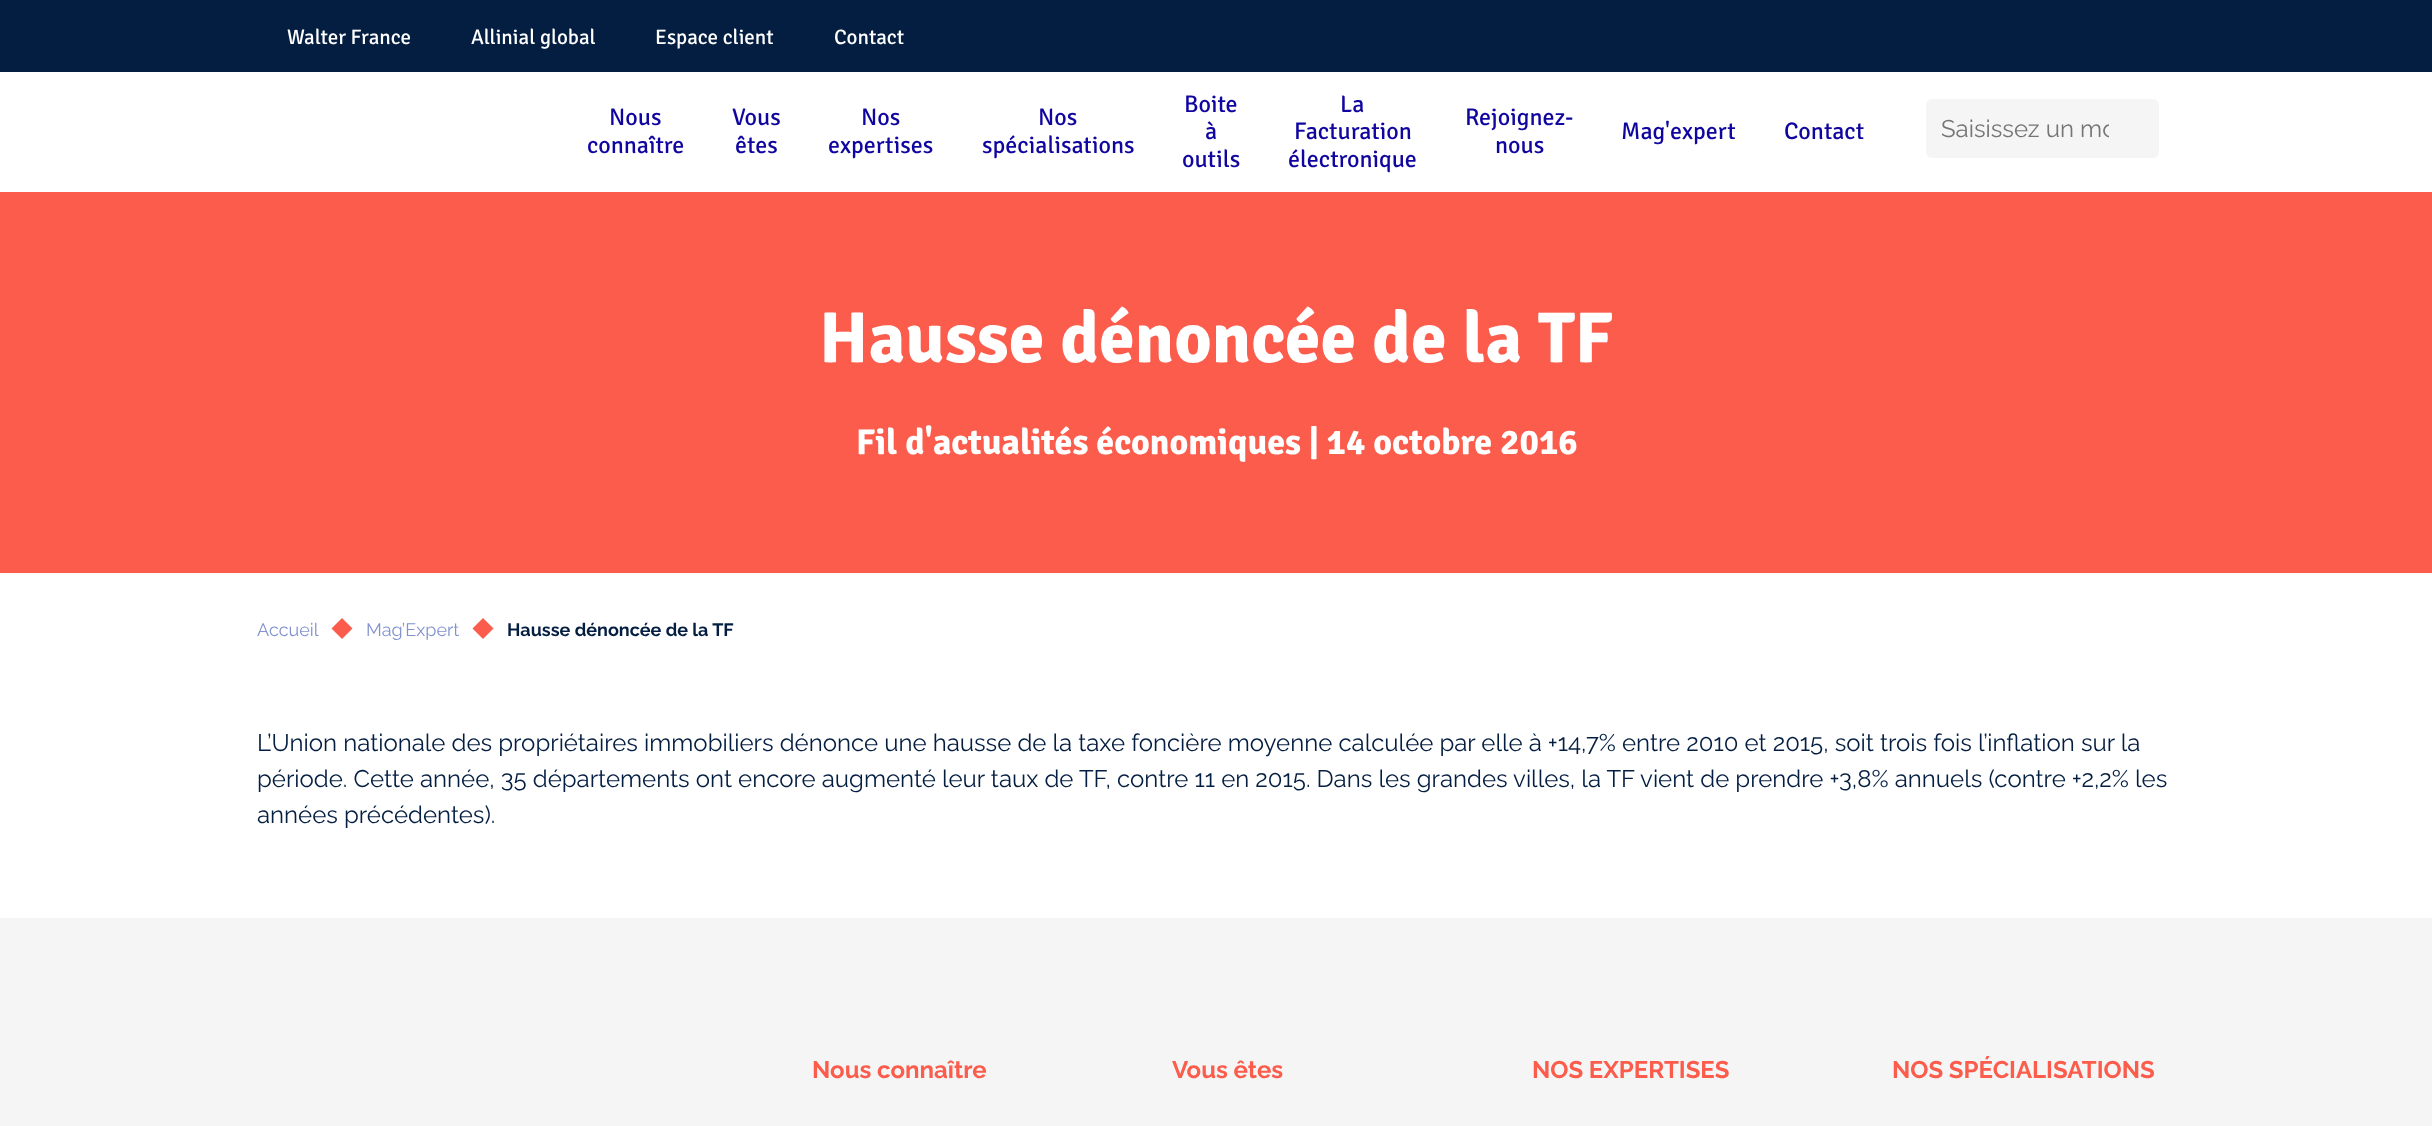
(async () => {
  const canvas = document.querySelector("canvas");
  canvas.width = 2432;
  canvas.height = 1126;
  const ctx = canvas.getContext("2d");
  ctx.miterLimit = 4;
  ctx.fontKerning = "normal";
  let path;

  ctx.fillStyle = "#ffffff";
  ctx.fillRect(0, 0, 2432, 1126);
  ctx.fillStyle = "#041e42";
  ctx.fillRect(0, 0, 2432, 72);
  ctx.fillStyle = "#f5f5f5";
  ctx.beginPath();
  ctx.roundRect(1926, 99, 198, 59, [6, 0, 0, 6]);
  ctx.fill();
  ctx.beginPath();
  ctx.roundRect(2124, 99, 35, 59, [0, 6, 6, 0]);
  ctx.fill();
  ctx.fillStyle = "#fb5c4b";
  ctx.fillRect(0, 192, 2432, 381);
  path = new Path2D("M342 618L352.5 628.5L342 639L331.5 628.5Z");
  ctx.fill(path);
  path = new Path2D("M483 618L493.5 628.5L483 639L472.5 628.5Z");
  ctx.fill(path);
  ctx.fillStyle = "#f5f5f5";
  ctx.fillRect(0, 918, 2432, 208);
  ctx.font = "21px Signika";
  ctx.fillStyle = "#ffffff";
  for (const [text, x, y] of [
    ["Walter France", 287, 44],
    ["Allinial global", 471, 44],
    ["Espace client", 655, 44],
    ["Contact", 834, 44],
  ]) {
    ctx.fillText(text, x, y);
  }
  ctx.font = "24px Signika";
  ctx.fillStyle = "#10069f";
  for (const [text, x, y] of [
    ["Nous", 609, 125],
    ["connaître", 587, 153],
    ["Vous", 732, 125],
    ["êtes", 735, 153],
    ["Nos", 861, 125],
    ["expertises", 828, 153],
    ["Nos", 1038, 125],
    ["spécialisations", 982, 153],
    ["Boite", 1184, 112],
    ["à", 1205, 139],
    ["outils", 1182, 167],
    ["La", 1340, 112],
    ["Facturation", 1294, 139],
    ["électronique", 1288, 167],
    ["Rejoignez-", 1465, 125],
    ["nous", 1495, 153],
    ["Mag'expert", 1621, 139],
    ["Contact", 1784, 139],
  ]) {
    ctx.fillText(text, x, y);
  }
  ctx.save();
  ctx.beginPath();
  ctx.rect(1941, 114, 168, 29);
  ctx.clip();
  ctx.font = "24px Raleway";
  ctx.fillStyle = "#757575";
  ctx.fillText("Saisissez un mo", 1941, 137);
  ctx.restore();
  ctx.font = "bold 72px Signika";
  ctx.fillStyle = "#ffffff";
  ctx.fillText("Hausse dénoncée de la TF", 819, 362);
  ctx.font = "bold 36px Signika";
  ctx.fillText("Fil d'actualités économiques | 14 octobre 2016", 856, 454);
  ctx.font = "18px Raleway";
  ctx.fillStyle = "#8292cf";
  ctx.fillText("Accueil", 257, 636);
  ctx.fillText("Mag’Expert", 366, 636);
  ctx.font = "bold 18px Raleway";
  ctx.fillStyle = "#041e42";
  ctx.fillText("Hausse dénoncée de la TF", 507, 636);
  ctx.font = "24px Raleway";
  for (const [text, x, y] of [
    ["L’Union nationale des propriétaires immobiliers dénonce une hausse de la taxe foncière moyenne calculée par elle à +14,7% entre 2010 et 2015, soit trois fois l’inflation sur la", 257, 751],
    ["période. Cette année, 35 départements ont encore augmenté leur taux de TF, contre 11 en 2015. Dans les grandes villes, la TF vient de prendre +3,8% annuels (contre +2,2% les", 257, 787],
    ["années précédentes).", 257, 823],
  ]) {
    ctx.fillText(text, x, y);
  }
  ctx.font = "bold 24px Raleway";
  ctx.fillStyle = "#fb5c4b";
  for (const [text, x, y] of [
    ["Nous connaître", 812, 1078],
    ["Vous êtes", 1172, 1078],
    ["NOS EXPERTISES", 1532, 1078],
    ["NOS SPÉCIALISATIONS", 1892, 1078],
  ]) {
    ctx.fillText(text, x, y);
  }
})();
